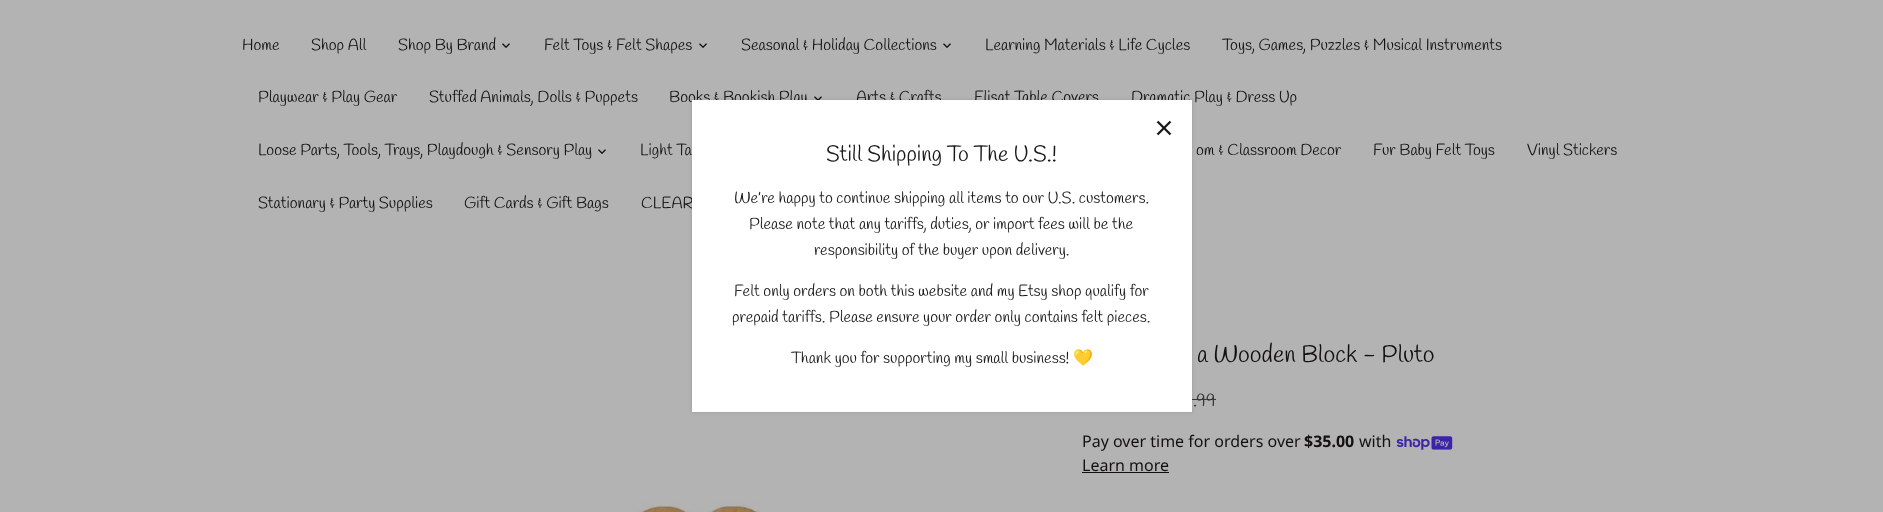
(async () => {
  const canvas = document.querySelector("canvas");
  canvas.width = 1883;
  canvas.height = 512;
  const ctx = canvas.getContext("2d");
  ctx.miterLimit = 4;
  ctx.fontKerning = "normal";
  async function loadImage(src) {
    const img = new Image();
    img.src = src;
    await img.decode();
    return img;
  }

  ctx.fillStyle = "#b3b3b3";
  ctx.fillRect(0, 0, 1883, 512);
  ctx.drawImage(await loadImage("img/1.png"), 502, 43, 8, 5);
  ctx.drawImage(await loadImage("img/1.png"), 699, 43, 8, 5);
  ctx.drawImage(await loadImage("img/1.png"), 943, 43, 8, 5);
  ctx.drawImage(await loadImage("img/2.png"), 814, 96, 8, 4);
  ctx.drawImage(await loadImage("img/1.png"), 598, 149, 8, 5);
  ctx.fillStyle = "#3a3939";
  ctx.fillRect(1192, 399, 24, 1);
  ctx.drawImage(await loadImage("img/3.png"), 1396, 436, 57, 14);
  ctx.fillStyle = "#121110";
  ctx.fillRect(1082, 472, 87, 1);
  ctx.drawImage(await loadImage("img/4.png"), 634, 502, 126, 10);
  ctx.fillStyle = "rgba(0, 0, 0, 0.08)";
  ctx.filter = "blur(1.5px)";
  ctx.beginPath();
  ctx.rect(691, 99, 502, 314);
  ctx.fill();
  ctx.filter = "none";
  ctx.font = "16px Handlee";
  ctx.fillStyle = "#121110";
  for (const [text, x, y] of [
    ["Home", 242, 50],
    ["Shop All", 311, 50],
    ["Shop By Brand", 398, 50],
    ["Felt Toys & Felt Shapes", 544, 50],
    ["Seasonal & Holiday Collections", 741, 50],
    ["Learning Materials & Life Cycles", 985, 50],
    ["Toys, Games, Puzzles & Musical Instruments", 1222, 50],
    ["Playwear & Play Gear", 258, 102],
    ["Stuffed Animals, Dolls & Puppets", 429, 102],
    ["Books & Bookish Play", 669, 102],
    ["Arts & Crafts", 856, 102],
    ["Flisat Table Covers", 974, 102],
    ["Dramatic Play & Dress Up", 1131, 102],
    ["Loose Parts, Tools, Trays, Playdough & Sensory Play", 258, 155],
    ["Light Ta", 640, 155],
    ["om & Classroom Decor", 1196, 155],
    ["Fur Baby Felt Toys", 1373, 155],
    ["Vinyl Stickers", 1527, 155],
    ["Stationary & Party Supplies", 258, 208],
    ["Gift Cards & Gift Bags", 464, 208],
    ["CLEAR", 641, 208],
  ]) {
    ctx.fillText(text, x, y);
  }
  ctx.font = "24px Handlee";
  ctx.fillText("a Wooden Block - Pluto", 1197, 362);
  ctx.font = "19px Handlee";
  ctx.fillStyle = "#3a3939";
  ctx.fillText(".99", 1193, 406);
  ctx.font = "16px Noto Sans";
  ctx.fillStyle = "#121110";
  ctx.fillText("Pay over time for orders over", 1082, 447);
  ctx.font = "bold 16px Noto Sans";
  ctx.fillText("$35.00", 1304, 447);
  ctx.font = "16px Noto Sans";
  ctx.fillText("with", 1359, 447);
  ctx.fillText("Learn more", 1082, 471);
  ctx.fillStyle = "#ffffff";
  ctx.fillRect(692, 100, 500, 312);
  ctx.drawImage(await loadImage("img/5.png"), 1156, 120, 16, 16);
  ctx.font = "22px Handlee";
  ctx.fillStyle = "#191817";
  ctx.fillText("Still Shipping To The U.S.!", 826, 161);
  ctx.font = "16px Handlee";
  for (const [text, x, y] of [
    ["We’re happy to continue shipping all items to our U.S. customers.", 734, 203],
    ["Please note that any tariffs, duties, or import fees will be the", 749, 229],
    ["responsibility of the buyer upon delivery.", 814, 255],
    ["Felt only orders on both this website and my Etsy shop qualify for", 734, 296],
    ["prepaid tariffs. Please ensure your order only contains felt pieces.", 732, 322],
    ["Thank you for supporting my small business!", 791, 363],
  ]) {
    ctx.fillText(text, x, y);
  }
  ctx.font = "16px Noto Color Emoji";
  ctx.fillText("💛", 1073, 363);
})();
